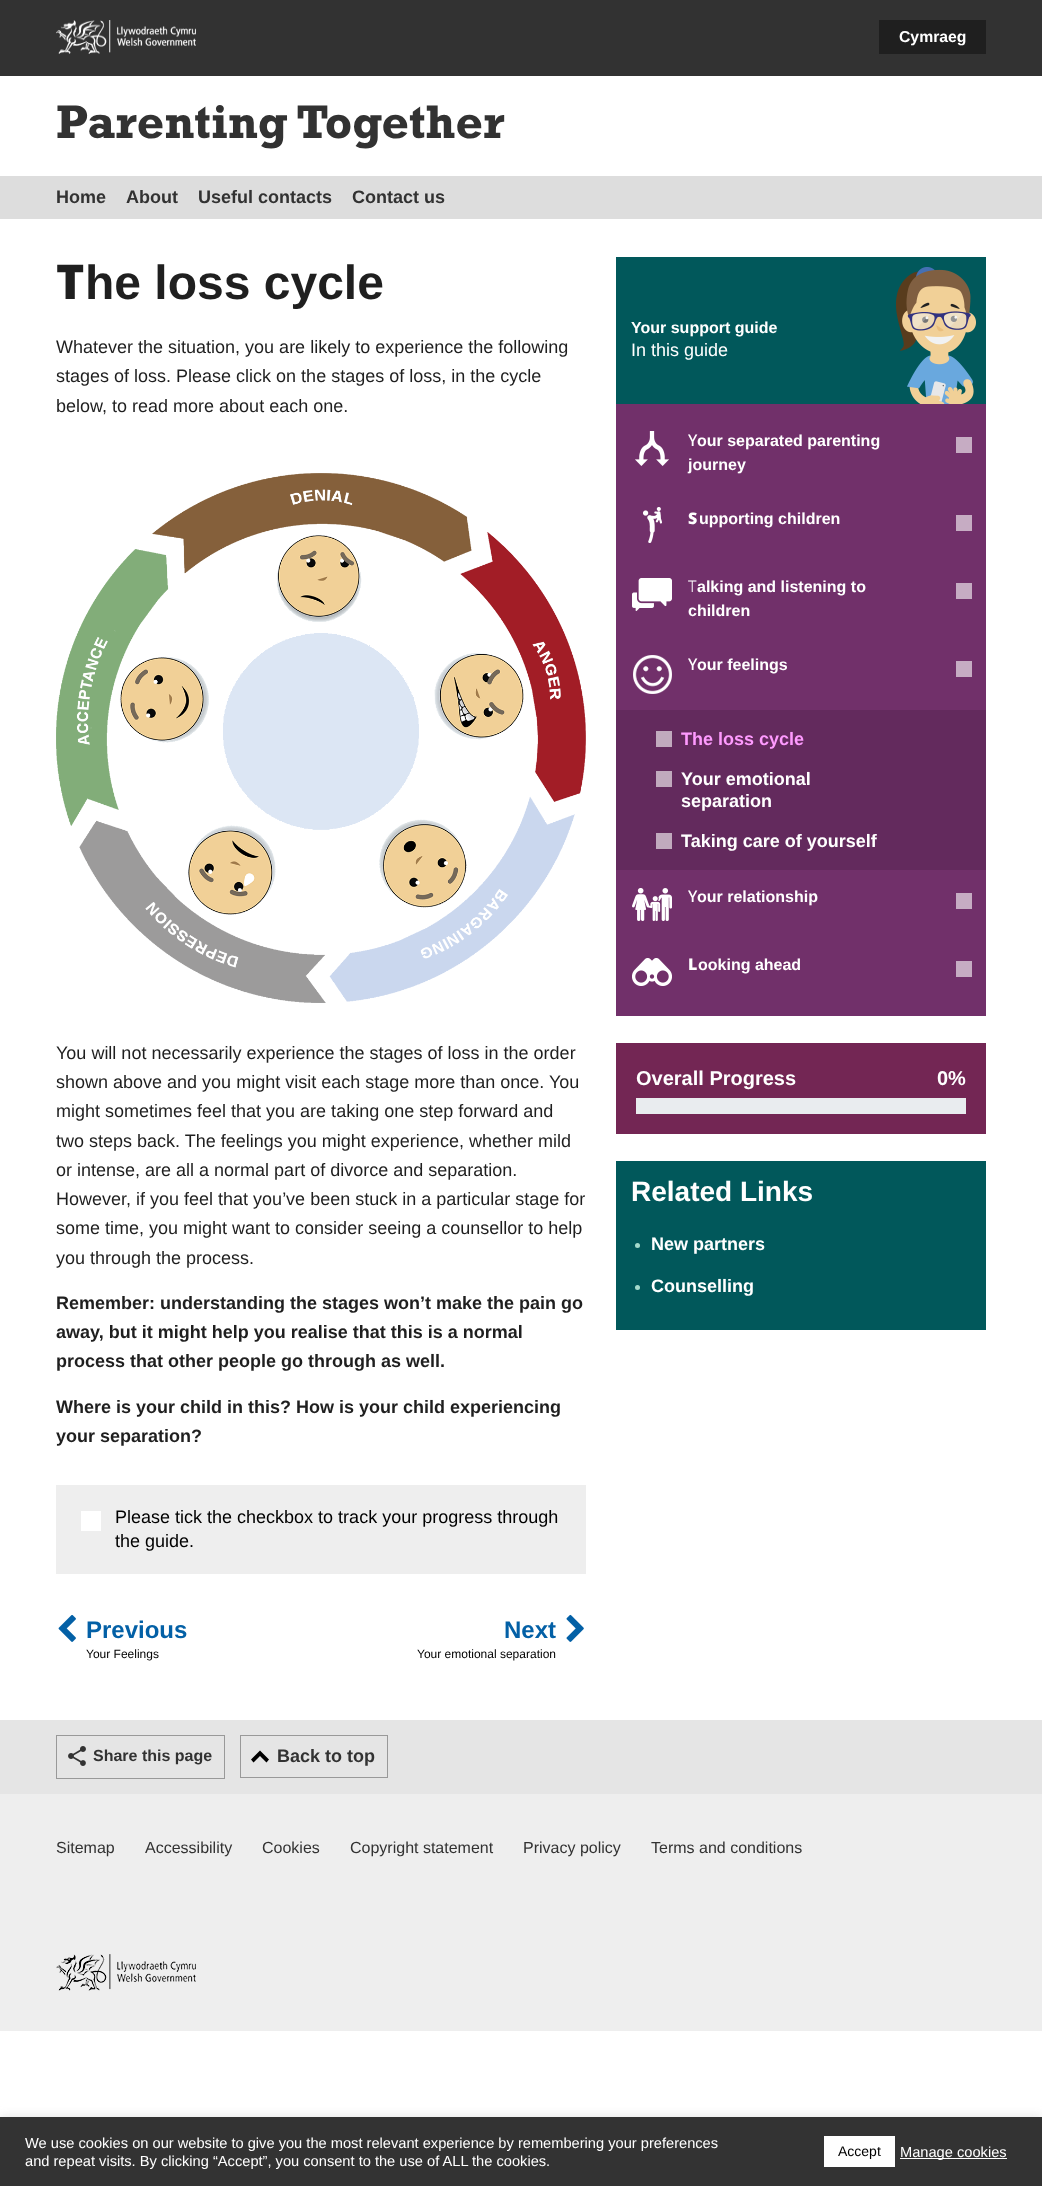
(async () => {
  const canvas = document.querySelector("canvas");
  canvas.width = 1042;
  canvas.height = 2186;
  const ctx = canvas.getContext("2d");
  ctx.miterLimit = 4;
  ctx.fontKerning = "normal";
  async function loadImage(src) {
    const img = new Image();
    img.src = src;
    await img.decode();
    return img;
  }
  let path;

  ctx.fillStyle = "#ffffff";
  ctx.fillRect(0, 0, 1042, 2186);
  ctx.fillStyle = "#323232";
  ctx.fillRect(0, 0, 1042, 76);
  ctx.drawImage(await loadImage("img/1.png"), 56, 20, 140, 34);
  ctx.fillStyle = "#1f1f1f";
  ctx.fillRect(879, 20, 107, 34);
  ctx.fillStyle = "#dddddd";
  ctx.fillRect(0, 176, 1042, 43);
  ctx.drawImage(await loadImage("img/2.png"), 56, 473, 530, 530);
  ctx.fillStyle = "#eeeeee";
  ctx.fillRect(56, 1485, 530, 89);
  ctx.fillStyle = "#ffffff";
  ctx.fillRect(81, 1511, 20, 20);
  ctx.drawImage(await loadImage("img/3.png"), 58, 1615, 18, 27);
  ctx.drawImage(await loadImage("img/4.png"), 566, 1614, 18, 28);
  ctx.fillStyle = "#01585b";
  ctx.fillRect(616, 257, 370, 147);
  ctx.drawImage(await loadImage("img/5.png"), 896, 267, 80, 137);
  ctx.fillStyle = "#71306a";
  ctx.fillRect(616, 404, 370, 612);
  ctx.drawImage(await loadImage("img/6.png"), 635, 431, 34, 35);
  ctx.fillStyle = "#c6acc3";
  ctx.fillRect(956, 437, 16, 16);
  ctx.drawImage(await loadImage("img/7.png"), 643, 507, 19, 36);
  ctx.fillRect(956, 515, 16, 16);
  ctx.drawImage(await loadImage("img/8.png"), 632, 578, 40, 33);
  ctx.fillRect(956, 583, 16, 16);
  ctx.drawImage(await loadImage("img/9.png"), 633, 655, 39, 39);
  for (const [x, y, w, h, color] of [
    [956, 661, 16, 16, "#c6acc3"],
    [616, 710, 370, 160, "#632a5d"],
    [656, 731, 16, 16, "#c1aabe"],
    [656, 771, 16, 16, "#c1aabe"],
    [656, 833, 16, 16, "#c1aabe"],
  ]) {
    ctx.fillStyle = color;
    ctx.fillRect(x, y, w, h);
  }
  ctx.drawImage(await loadImage("img/10.png"), 632, 888, 40, 33);
  ctx.fillStyle = "#c6acc3";
  ctx.fillRect(956, 893, 16, 16);
  ctx.drawImage(await loadImage("img/11.png"), 632, 958, 40, 28);
  for (const [x, y, w, h, color] of [
    [956, 961, 16, 16, "#c6acc3"],
    [616, 1043, 370, 91, "#732654"],
    [636, 1098, 330, 16, "#e9ecef"],
    [616, 1161, 370, 169, "#01585b"],
  ]) {
    ctx.fillStyle = color;
    ctx.fillRect(x, y, w, h);
  }
  ctx.fillStyle = "#a4dacc";
  ctx.beginPath();
  ctx.arc(637.5, 1245.5, 2.5, 0, Math.PI * 2);
  ctx.fill();
  ctx.beginPath();
  ctx.arc(637.5, 1287.5, 2.5, 0, Math.PI * 2);
  ctx.fill();
  ctx.fillStyle = "#e5e5e5";
  ctx.fillRect(0, 1720, 1042, 74);
  ctx.strokeStyle = "#999999";
  ctx.strokeRect(56.5, 1735.5, 168, 43);
  ctx.drawImage(await loadImage("img/12.png"), 68, 1746, 18, 20);
  ctx.fillStyle = "#000000";
  path = new Path2D("M269 1759.5L260 1750.5L251 1759.5L253.5 1762.5L260 1756L266.5 1762.5Z");
  ctx.fill(path);
  ctx.strokeRect(240.5, 1735.5, 147, 42);
  ctx.fillStyle = "#eeeeee";
  ctx.fillRect(0, 1794, 1042, 237);
  ctx.drawImage(await loadImage("img/13.png"), 56, 1954, 140, 37);
  ctx.fillStyle = "rgba(172, 171, 171, 0.3)";
  ctx.filter = "blur(5px)";
  ctx.beginPath();
  ctx.rect(0, 2116, 1042, 69);
  ctx.fill();
  ctx.filter = "none";
  for (const [x, y, w, h, color] of [
    [0, 2117, 1042, 69, "#333333"],
    [824, 2136, 71, 31, "#ffffff"],
    [900, 2158, 107, 1, "#ffffff"],
  ]) {
    ctx.fillStyle = color;
    ctx.fillRect(x, y, w, h);
  }
  ctx.font = "bold 15.75px Liberation Sans";
  ctx.fillText("Cymraeg", 899, 42);
  ctx.font = "bold 48px Rockwell";
  ctx.fillStyle = "#323232";
  ctx.fillText("Parenting Together", 56, 138);
  ctx.font = "bold 18px Liberation Sans";
  for (const [text, x, y] of [
    ["Home", 56, 203],
    ["About", 126, 203],
    ["Useful contacts", 198, 203],
    ["Contact us", 352, 203],
  ]) {
    ctx.fillText(text, x, y);
  }
  ctx.font = "900 48px Noto Sans";
  ctx.fillStyle = "#1f1f1f";
  ctx.fillText("T", 56, 299);
  ctx.font = "bold 48px Liberation Sans";
  ctx.fillText("he loss cycle", 85, 299);
  ctx.font = "18px Liberation Sans";
  for (const [text, x, y] of [
    ["Whatever the situation, you are likely to experience the following", 56, 353],
    ["stages of loss. Please click on the stages of loss, in the cycle", 56, 382],
    ["below, to read more about each one.", 56, 412],
    ["You will not necessarily experience the stages of loss in the order", 56, 1059],
    ["shown above and you might visit each stage more than once. You", 56, 1088],
    ["might sometimes feel that you are taking one step forward and", 56, 1117],
    ["two steps back. The feelings you might experience, whether mild", 56, 1147],
    ["or intense, are all a normal part of divorce and separation.", 56, 1176],
    ["However, if you feel that you’ve been stuck in a particular stage for", 56, 1205],
    ["some time, you might want to consider seeing a counsellor to help", 56, 1234],
    ["you through the process.", 56, 1264],
  ]) {
    ctx.fillText(text, x, y);
  }
  ctx.font = "bold 18px Liberation Sans";
  for (const [text, x, y] of [
    ["Remember: understanding the stages won’t make the pain go", 56, 1309],
    ["away, but it might help you realise that this is a normal", 56, 1338],
    ["process that other people go through as well.", 56, 1367],
    ["Where is your child in this? How is your child experiencing", 56, 1413],
    ["your separation?", 56, 1442],
  ]) {
    ctx.fillText(text, x, y);
  }
  ctx.font = "18px Liberation Sans";
  ctx.fillStyle = "#000000";
  ctx.fillText("Please tick the checkbox to track your progress through", 115, 1523);
  ctx.fillText("the guide.", 115, 1547);
  ctx.font = "bold 24px Liberation Sans";
  ctx.fillStyle = "#0360a6";
  ctx.fillText("Previous", 86, 1638);
  ctx.font = "12px Liberation Sans";
  ctx.fillStyle = "#000000";
  ctx.fillText("Your Feelings", 86, 1658);
  ctx.font = "bold 24px Liberation Sans";
  ctx.fillStyle = "#0360a6";
  ctx.fillText("Next", 504, 1638);
  ctx.font = "12px Liberation Sans";
  ctx.fillStyle = "#000000";
  ctx.fillText("Your emotional separation", 417, 1658);
  ctx.font = "bold 16px Liberation Sans";
  ctx.fillStyle = "#ffffff";
  ctx.fillText("Your support guide", 631, 333);
  ctx.font = "18px Liberation Sans";
  ctx.fillText("In this guide", 631, 356);
  ctx.font = "500 16px Noto Sans";
  ctx.fillText("Y", 688, 446);
  ctx.font = "bold 16px Liberation Sans";
  ctx.fillText("our separated parenting", 697, 446);
  ctx.fillText("journey", 688, 470);
  ctx.font = "900 16px Noto Sans";
  ctx.fillText("S", 688, 524);
  ctx.font = "bold 16px Liberation Sans";
  ctx.fillText("upporting children", 699, 524);
  ctx.font = "300 16px Noto Sans";
  ctx.fillText("T", 688, 592);
  ctx.font = "bold 16px Liberation Sans";
  ctx.fillText("alking and listening to", 697, 592);
  ctx.fillText("children", 688, 616);
  ctx.font = "500 16px Noto Sans";
  ctx.fillText("Y", 688, 670);
  ctx.font = "bold 16px Liberation Sans";
  ctx.fillText("our feelings", 697, 670);
  ctx.font = "bold 18px Liberation Sans";
  ctx.fillStyle = "#fe9afe";
  ctx.fillText("The loss cycle", 681, 745);
  ctx.fillStyle = "#ffffff";
  for (const [text, x, y] of [
    ["Your emotional", 681, 785],
    ["separation", 681, 807],
    ["Taking care of yourself", 681, 847],
  ]) {
    ctx.fillText(text, x, y);
  }
  ctx.font = "500 16px Noto Sans";
  ctx.fillText("Y", 688, 902);
  ctx.font = "bold 16px Liberation Sans";
  ctx.fillText("our relationship", 697, 902);
  ctx.font = "900 16px Noto Sans";
  ctx.fillText("L", 688, 970);
  ctx.font = "bold 16px Liberation Sans";
  ctx.fillText("ooking ahead", 698, 970);
  ctx.font = "bold 20px Liberation Sans";
  ctx.fillText("Overall Progress", 636, 1085);
  ctx.fillText("0%", 937, 1085);
  ctx.font = "bold 28px Liberation Sans";
  ctx.fillText("Related Links", 631, 1201);
  ctx.font = "bold 18px Liberation Sans";
  ctx.fillText("New partners", 651, 1250);
  ctx.fillText("Counselling", 651, 1292);
  ctx.font = "bold 16px Liberation Sans";
  ctx.fillStyle = "#323232";
  ctx.fillText("Share this page", 93, 1761);
  ctx.font = "bold 18px Liberation Sans";
  ctx.fillText("Back to top", 277, 1762);
  ctx.font = "16px Liberation Sans";
  for (const [text, x, y] of [
    ["Sitemap", 56, 1853],
    ["Accessibility", 145, 1853],
    ["Cookies", 262, 1853],
    ["Copyright statement", 350, 1853],
    ["Privacy policy", 523, 1853],
    ["Terms and conditions", 651, 1853],
  ]) {
    ctx.fillText(text, x, y);
  }
  ctx.font = "14.65px Liberation Sans";
  ctx.fillStyle = "#ffffff";
  ctx.fillText("We use cookies on our website to give you the most relevant experience by remembering your preferences", 25, 2148);
  ctx.fillText("and repeat visits. By clicking “Accept”, you consent to the use of ALL the cookies.", 25, 2166);
  ctx.font = "14px Liberation Sans";
  ctx.fillStyle = "#000000";
  ctx.fillText("Accept", 838, 2156);
  ctx.font = "14.65px Liberation Sans";
  ctx.fillStyle = "#ffffff";
  ctx.fillText("Manage cookies", 900, 2157);
})();
